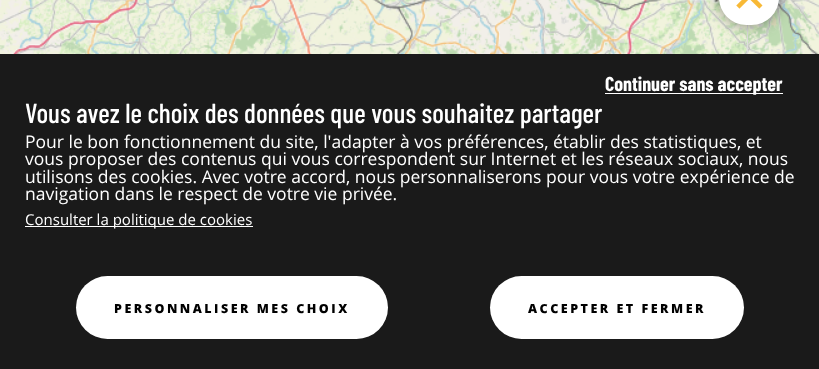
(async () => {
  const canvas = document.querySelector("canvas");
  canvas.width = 819;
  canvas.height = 369;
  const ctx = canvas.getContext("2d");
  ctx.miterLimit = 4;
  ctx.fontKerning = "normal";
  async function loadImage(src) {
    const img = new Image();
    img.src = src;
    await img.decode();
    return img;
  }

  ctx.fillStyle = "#dddddd";
  ctx.fillRect(0, 0, 819, 369);
  ctx.drawImage(await loadImage("img/4.png"), 427, 0, 320, 54);
  ctx.drawImage(await loadImage("img/5.png"), 748, 0, 71, 54);
  ctx.fillStyle = "rgba(0, 0, 0, 0.5)";
  ctx.filter = "blur(7.5px)";
  ctx.beginPath();
  ctx.roundRect(719, -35, 60, 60, 30);
  ctx.fill();
  ctx.filter = "none";
  ctx.fillStyle = "#ffffff";
  ctx.beginPath();
  ctx.roundRect(719, -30, 60, 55, 30);
  ctx.fill();
  ctx.drawImage(await loadImage("img/1.png"), 736, 0, 27, 9);
  ctx.drawImage(await loadImage("img/2.png"), 0, 0, 108, 54);
  ctx.drawImage(await loadImage("img/3.png"), 108, 0, 319, 54);
  for (const [x, y, w, h, color] of [
    [0, 54, 819, 315, "#1a1a1a"],
    [605, 93, 178, 1, "#ffffff"],
    [25, 226, 228, 1, "#ffffff"],
  ]) {
    ctx.fillStyle = color;
    ctx.fillRect(x, y, w, h);
  }
  ctx.beginPath();
  ctx.roundRect(76, 276, 312, 63, 31.5);
  ctx.fill();
  ctx.beginPath();
  ctx.roundRect(490, 276, 254, 63, 31.5);
  ctx.fill();
  ctx.font = "bold 20px Barlow Condensed";
  ctx.fillText("Continuer sans accepter", 605, 91);
  ctx.font = "500 27.5px Barlow Condensed";
  ctx.fillText("Vous avez le choix des données que vous souhaitez partager", 25, 123);
  ctx.font = "17.5px Open Sans";
  for (const [text, x, y] of [
    ["Pour le bon fonctionnement du site, l'adapter à vos préférences, établir des statistiques, et", 25, 148],
    ["vous proposer des contenus qui vous correspondent sur Internet et les réseaux sociaux, nous", 25, 165],
    ["utilisons des cookies. Avec votre accord, nous personnaliserons pour vous votre expérience de", 25, 183],
    ["navigation dans le respect de votre vie privée.", 25, 200],
  ]) {
    ctx.fillText(text, x, y);
  }
  ctx.font = "15px Open Sans";
  ctx.fillText("Consulter la politique de cookies", 25, 225);
  ctx.letterSpacing = "2.5px";
  ctx.font = "800 12.5px Open Sans";
  ctx.fillStyle = "#000000";
  ctx.fillText("PERSONNALISER MES CHOIX", 114, 313);
  ctx.fillText("ACCEPTER ET FERMER", 528, 313);
})();
